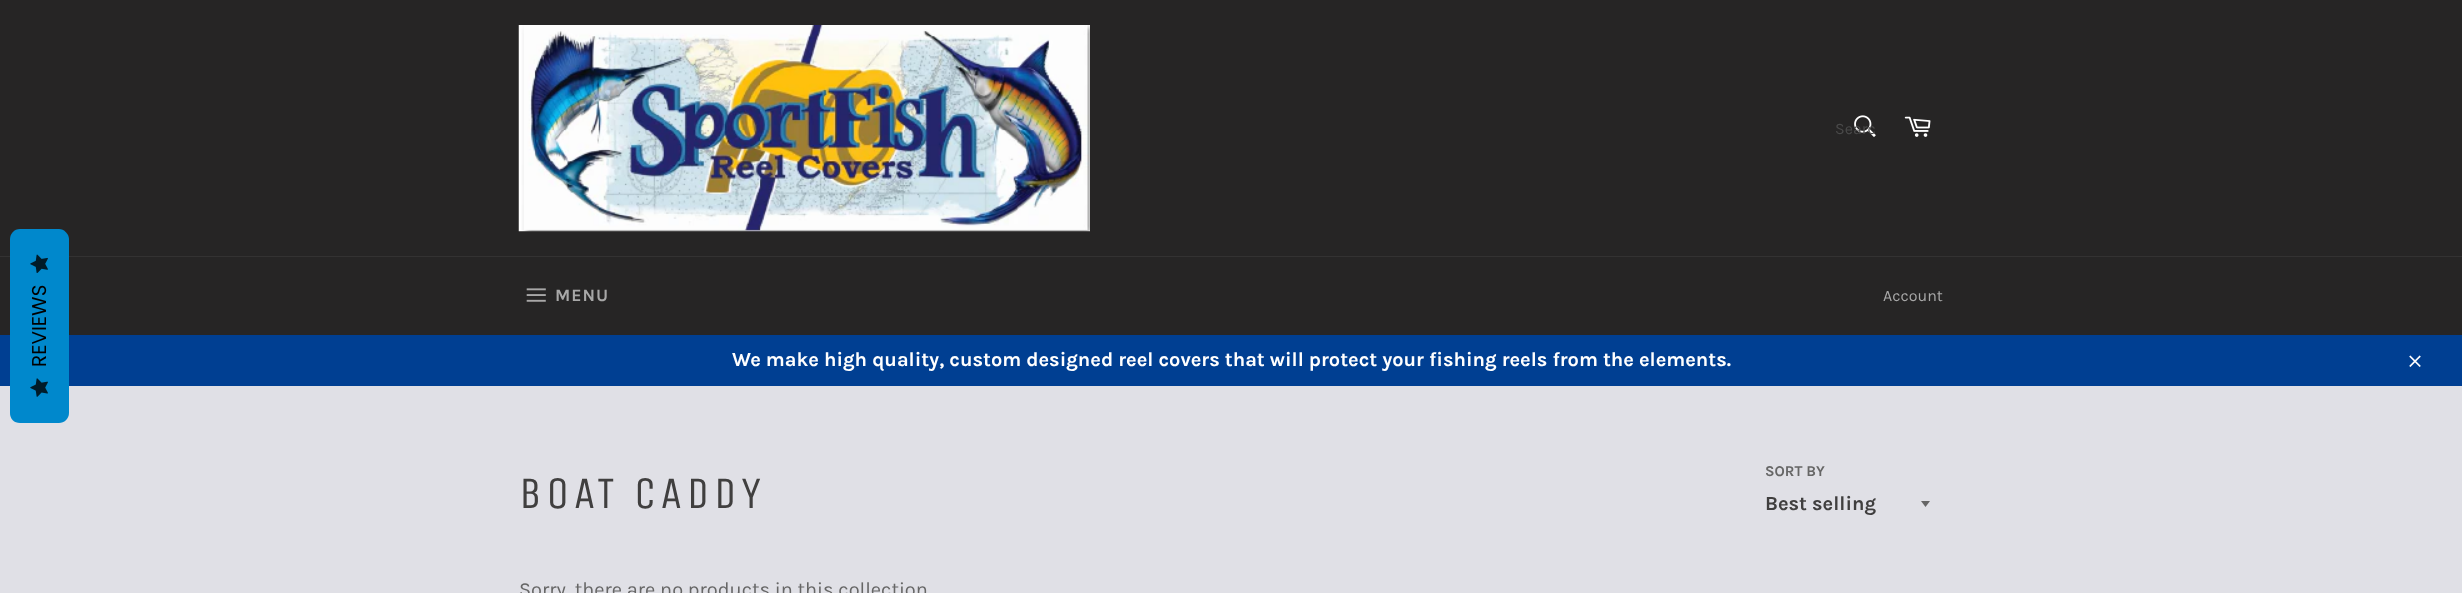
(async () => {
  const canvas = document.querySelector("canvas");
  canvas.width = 2462;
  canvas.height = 593;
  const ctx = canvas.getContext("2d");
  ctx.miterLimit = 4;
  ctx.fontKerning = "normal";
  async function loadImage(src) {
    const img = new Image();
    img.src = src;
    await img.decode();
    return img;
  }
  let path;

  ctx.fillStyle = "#e0e0e6";
  ctx.fillRect(0, 0, 2462, 593);
  for (const [x, y, w, h, color] of [
    [0, 0, 2462, 256, "#262525"],
    [0, 257, 2462, 78, "#262525"],
    [0, 256, 2462, 1, "#333232"],
    [0, 335, 2462, 51, "#003f92"],
  ]) {
    ctx.fillStyle = color;
    ctx.fillRect(x, y, w, h);
  }
  ctx.fillStyle = "#0088cc";
  path = new Path2D("M10 413V239C10 234 14 229 20 229H59C64 229 69 234 69 239V413C69 419 64 423 59 423H20C14 423 10 419 10 413Z");
  ctx.fill(path);
  ctx.drawImage(await loadImage("img/1.png"), 30, 254, 18, 19);
  ctx.drawImage(await loadImage("img/2.png"), 30, 378, 18, 19);
  ctx.drawImage(await loadImage("img/3.png"), 518, 25, 572, 207);
  ctx.drawImage(await loadImage("img/4.png"), 1854, 115, 22, 22);
  ctx.drawImage(await loadImage("img/5.png"), 1904, 116, 27, 21);
  ctx.drawImage(await loadImage("img/6.png"), 526, 288, 20, 14);
  ctx.drawImage(await loadImage("img/7.png"), 2409, 355, 12, 12);
  ctx.fillStyle = "#666666";
  path = new Path2D("M1921 501L1925.5 507L1930 501Z");
  ctx.fill(path);
  ctx.font = "20px Poppins";
  ctx.fillStyle = "#000000";
  ctx.save();
  ctx.translate(46, 367);
  ctx.rotate(-90 * Math.PI / 180);
  ctx.fillText("REVIEWS", 0, 0);
  ctx.restore();
  ctx.save();
  ctx.beginPath();
  ctx.rect(1835, 119, 40, 19);
  ctx.clip();
  ctx.font = "16px Karla";
  ctx.fillStyle = "#4a4a4a";
  ctx.fillText("Searc", 1835, 134);
  ctx.restore();
  ctx.letterSpacing = "1px";
  ctx.font = "bold 17.5px Karla";
  ctx.fillStyle = "#a8a8a8";
  ctx.fillText("MENU", 555, 301);
  ctx.letterSpacing = "0px";
  ctx.font = "16px Karla";
  ctx.fillText("Account", 1883, 301);
  ctx.font = "bold 20px Karla";
  ctx.fillStyle = "#ffffff";
  ctx.fillText("We make high quality, custom designed reel covers that will protect your fishing reels from the elements.", 732, 366);
  ctx.letterSpacing = "4.5px";
  ctx.font = "45px Unica One";
  ctx.fillStyle = "#403f3f";
  ctx.fillText("BOAT CADDY", 519, 508);
  ctx.letterSpacing = "0px";
  ctx.font = "bold 15px Karla";
  ctx.fillStyle = "#666666";
  ctx.fillText("SORT BY", 1765, 476);
  ctx.font = "bold 20px Karla";
  ctx.fillStyle = "#403f3f";
  ctx.fillText("Best selling", 1765, 510);
  ctx.font = "20px Karla";
  ctx.fillStyle = "#666666";
  ctx.fillText("Sorry, there are no products in this collection", 519, 596);
})();
